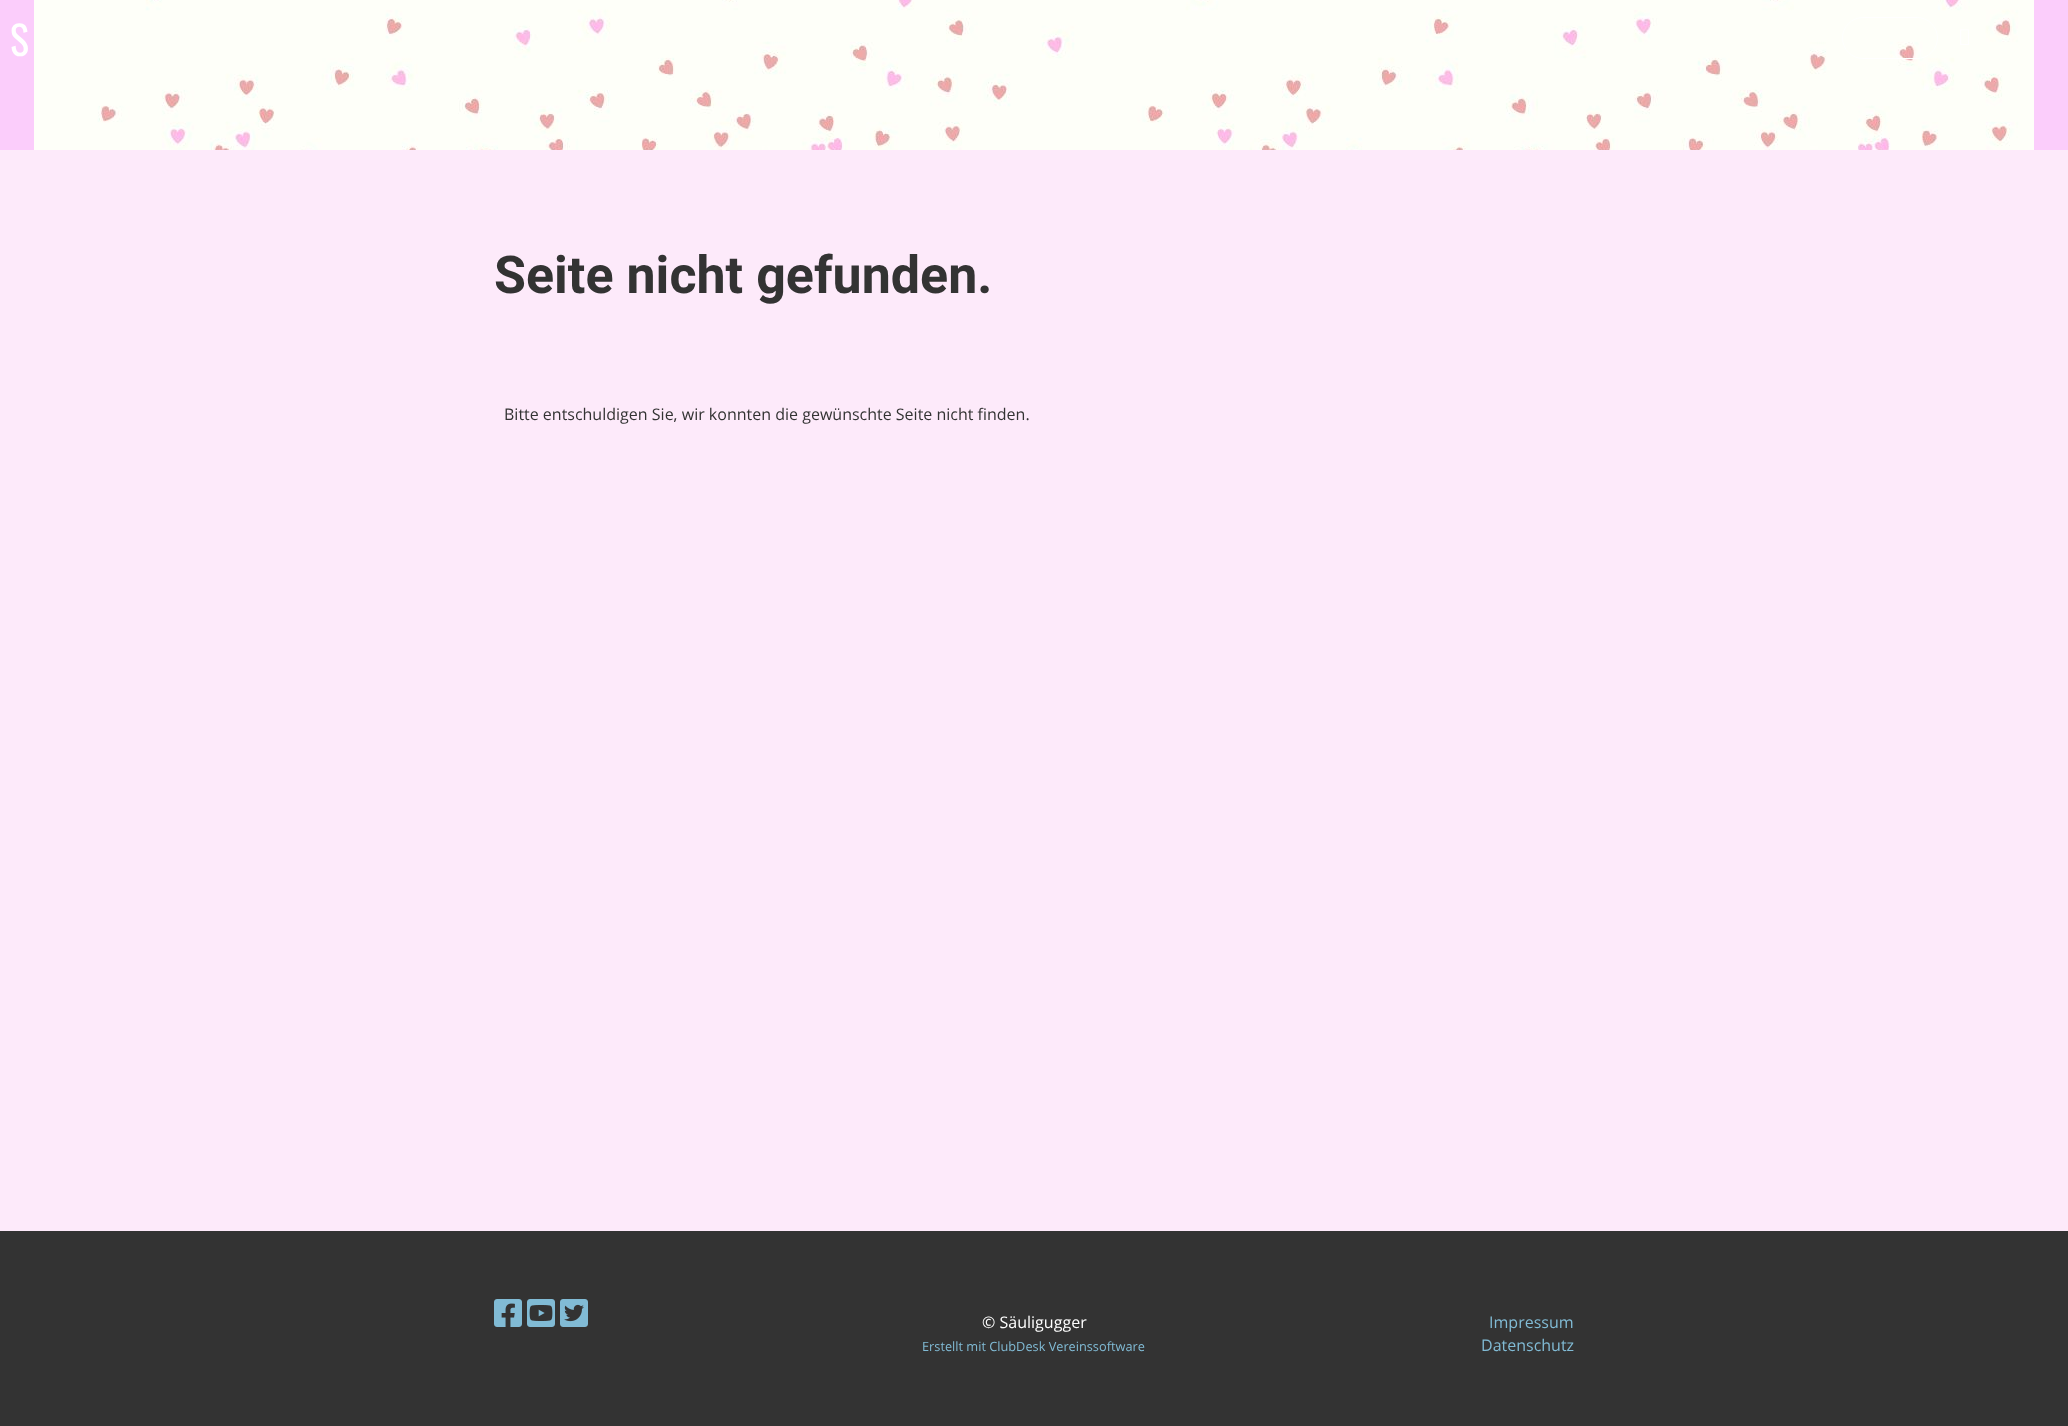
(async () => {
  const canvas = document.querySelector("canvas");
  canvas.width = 2068;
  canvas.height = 1426;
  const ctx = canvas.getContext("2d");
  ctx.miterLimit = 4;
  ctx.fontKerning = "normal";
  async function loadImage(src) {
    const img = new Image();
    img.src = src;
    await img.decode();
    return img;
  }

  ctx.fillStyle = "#fdeafa";
  ctx.fillRect(0, 0, 2068, 1426);
  ctx.fillStyle = "#fbcdfb";
  ctx.fillRect(0, 0, 2068, 150);
  ctx.drawImage(await loadImage("img/2.png"), 34, 0, 2000, 150);
  ctx.beginPath();
  ctx.roundRect(1842.5, 17.5, 95, 41, 20.5);
  ctx.strokeStyle = "#ffffff";
  ctx.stroke();
  ctx.drawImage(await loadImage("img/1.png"), 1960, 29, 9, 16);
  ctx.fillStyle = "#333333";
  ctx.fillRect(0, 1231, 2068, 195);
  ctx.drawImage(await loadImage("img/3.png"), 494, 1299, 28, 28);
  ctx.drawImage(await loadImage("img/4.png"), 527, 1299, 28, 28);
  ctx.drawImage(await loadImage("img/5.png"), 560, 1299, 28, 28);
  ctx.font = "40px Oswald";
  ctx.fillStyle = "#ffffff";
  ctx.fillText("S", 10, 56);
  ctx.font = "bold 52px Roboto";
  ctx.fillStyle = "#333333";
  ctx.fillText("Seite nicht gefunden.", 494, 293);
  ctx.font = "16px Open Sans";
  ctx.fillText("Bitte entschuldigen Sie, wir konnten die gewünschte Seite nicht finden.", 504, 420);
  ctx.fillStyle = "#ffffff";
  ctx.fillText("© Säuligugger", 982, 1328);
  ctx.font = "12.75px Open Sans";
  ctx.fillStyle = "#81bbd5";
  ctx.fillText("Erstellt mit ClubDesk Vereinssoftware", 922, 1351);
  ctx.font = "16px Open Sans";
  ctx.fillText("Impressum", 1489, 1328);
  ctx.fillText("Datenschutz", 1481, 1351);
})();
